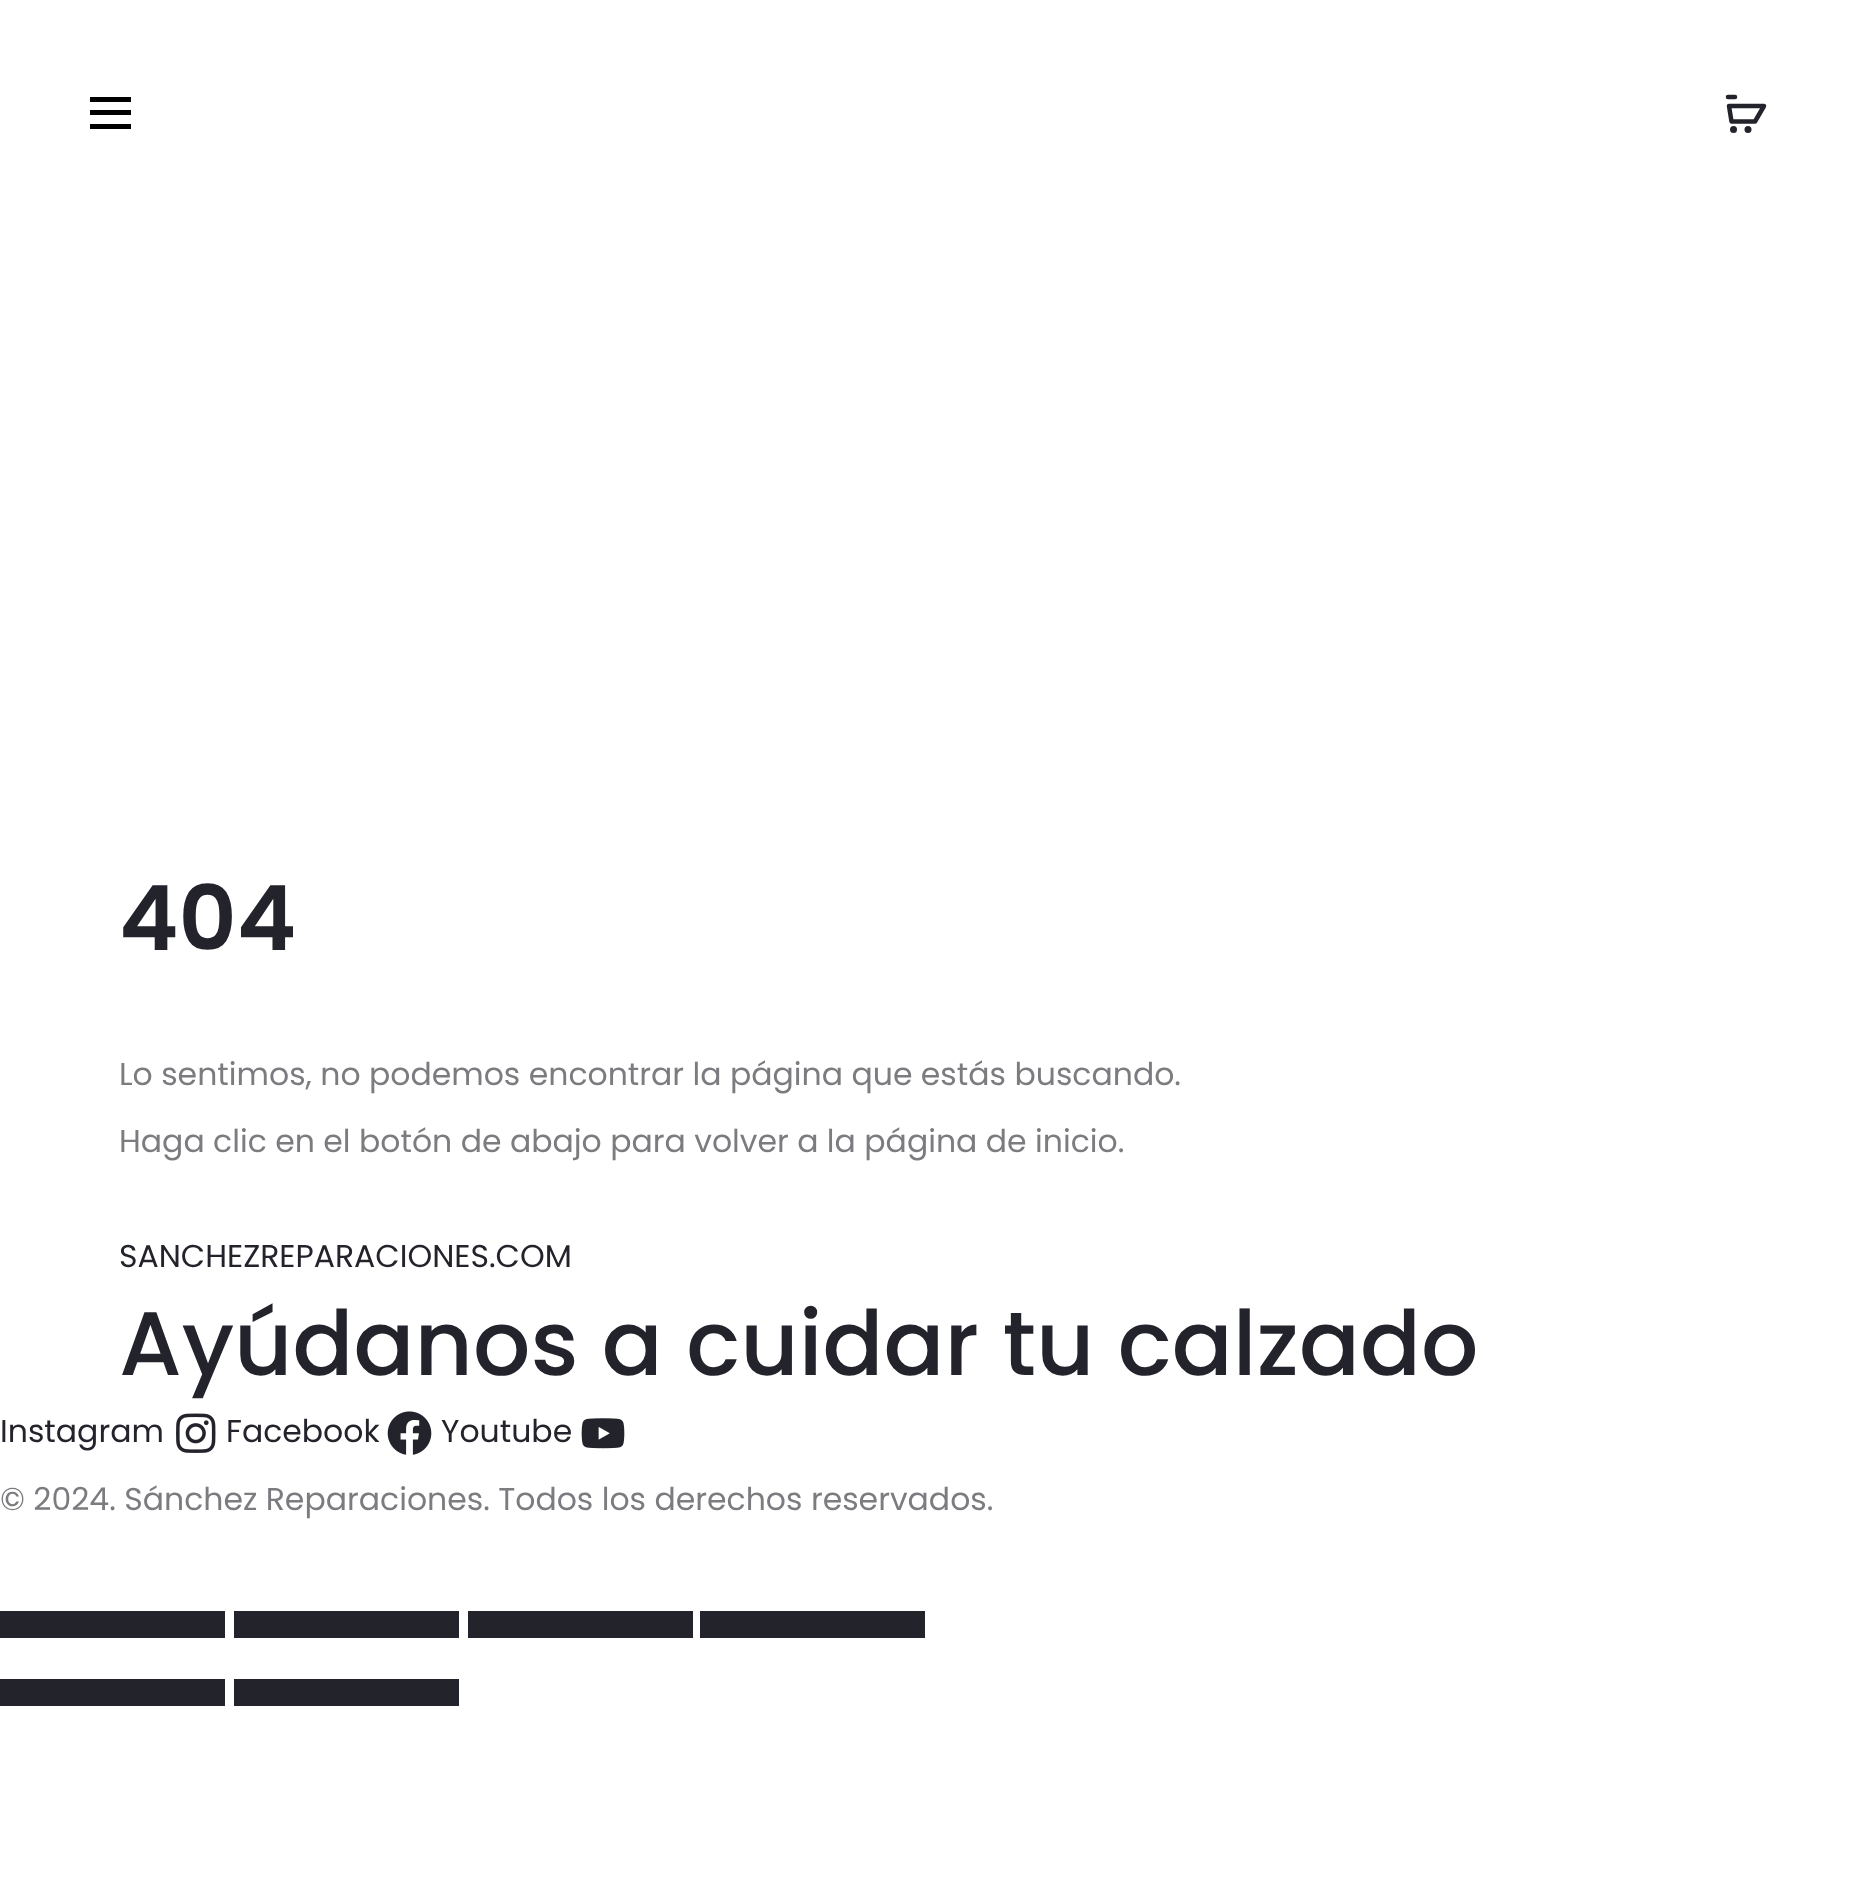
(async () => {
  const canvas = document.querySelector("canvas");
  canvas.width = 1857;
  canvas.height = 1888;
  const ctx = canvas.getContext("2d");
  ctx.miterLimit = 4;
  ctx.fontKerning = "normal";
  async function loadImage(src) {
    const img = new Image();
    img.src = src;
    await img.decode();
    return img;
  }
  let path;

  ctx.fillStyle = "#ffffff";
  ctx.fillRect(0, 0, 1857, 1888);
  for (const [x, y, w, h, color] of [
    [90, 110, 41, 5, "#000000"],
    [90, 97, 41, 5, "#000000"],
    [90, 124, 41, 5, "#000000"],
  ]) {
    ctx.fillStyle = color;
    ctx.fillRect(x, y, w, h);
  }
  path = new Path2D("M1729 106L1731.5 121.5H1755L1764 106Z");
  ctx.strokeStyle = "#23232c";
  ctx.lineWidth = 4.5;
  ctx.lineJoin = "round";
  ctx.stroke(path);
  ctx.fillStyle = "#23232c";
  ctx.beginPath();
  ctx.arc(1733.5, 129.5, 3.5, 0, Math.PI * 2);
  ctx.fill();
  ctx.beginPath();
  ctx.arc(1748, 129.5, 3.5, 0, Math.PI * 2);
  ctx.fill();
  path = new Path2D("M1728 97H1735");
  ctx.lineCap = "round";
  ctx.lineJoin = "miter";
  ctx.stroke(path);
  ctx.drawImage(await loadImage("img/1.png"), 176, 1413, 40, 40);
  ctx.drawImage(await loadImage("img/2.png"), 387, 1411, 45, 44);
  ctx.drawImage(await loadImage("img/3.png"), 581, 1418, 44, 31);
  for (const [x, y, w, h, color] of [
    [0, 1611, 225, 27, "#23232c"],
    [234, 1611, 225, 27, "#23232c"],
    [468, 1611, 225, 27, "#23232c"],
    [700, 1611, 225, 27, "#23232c"],
    [0, 1679, 225, 27, "#23232c"],
    [234, 1679, 225, 27, "#23232c"],
  ]) {
    ctx.fillStyle = color;
    ctx.fillRect(x, y, w, h);
  }
  ctx.font = "600 90px Poppins";
  ctx.fillText("404", 119, 950);
  ctx.font = "31.5px Poppins";
  ctx.fillStyle = "#7c7c80";
  ctx.fillText("Lo sentimos, no podemos encontrar la página que estás buscando.", 119, 1085);
  ctx.fillText("Haga clic en el botón de abajo para volver a la página de inicio.", 119, 1152);
  ctx.fillStyle = "#23232c";
  ctx.fillText("SANCHEZREPARACIONES.COM", 119, 1267);
  ctx.font = "500 90px Poppins";
  ctx.fillText("Ayúdanos a cuidar tu calzado", 119, 1375);
  ctx.font = "31.5px Poppins";
  for (const [text, x, y] of [
    ["Instagram", 0, 1442],
    ["Facebook", 226, 1442],
    ["Youtube", 441, 1442],
  ]) {
    ctx.fillText(text, x, y);
  }
  ctx.fillStyle = "#7c7c80";
  ctx.fillText("© 2024. Sánchez Reparaciones. Todos los derechos reservados.", 0, 1510);
})();
